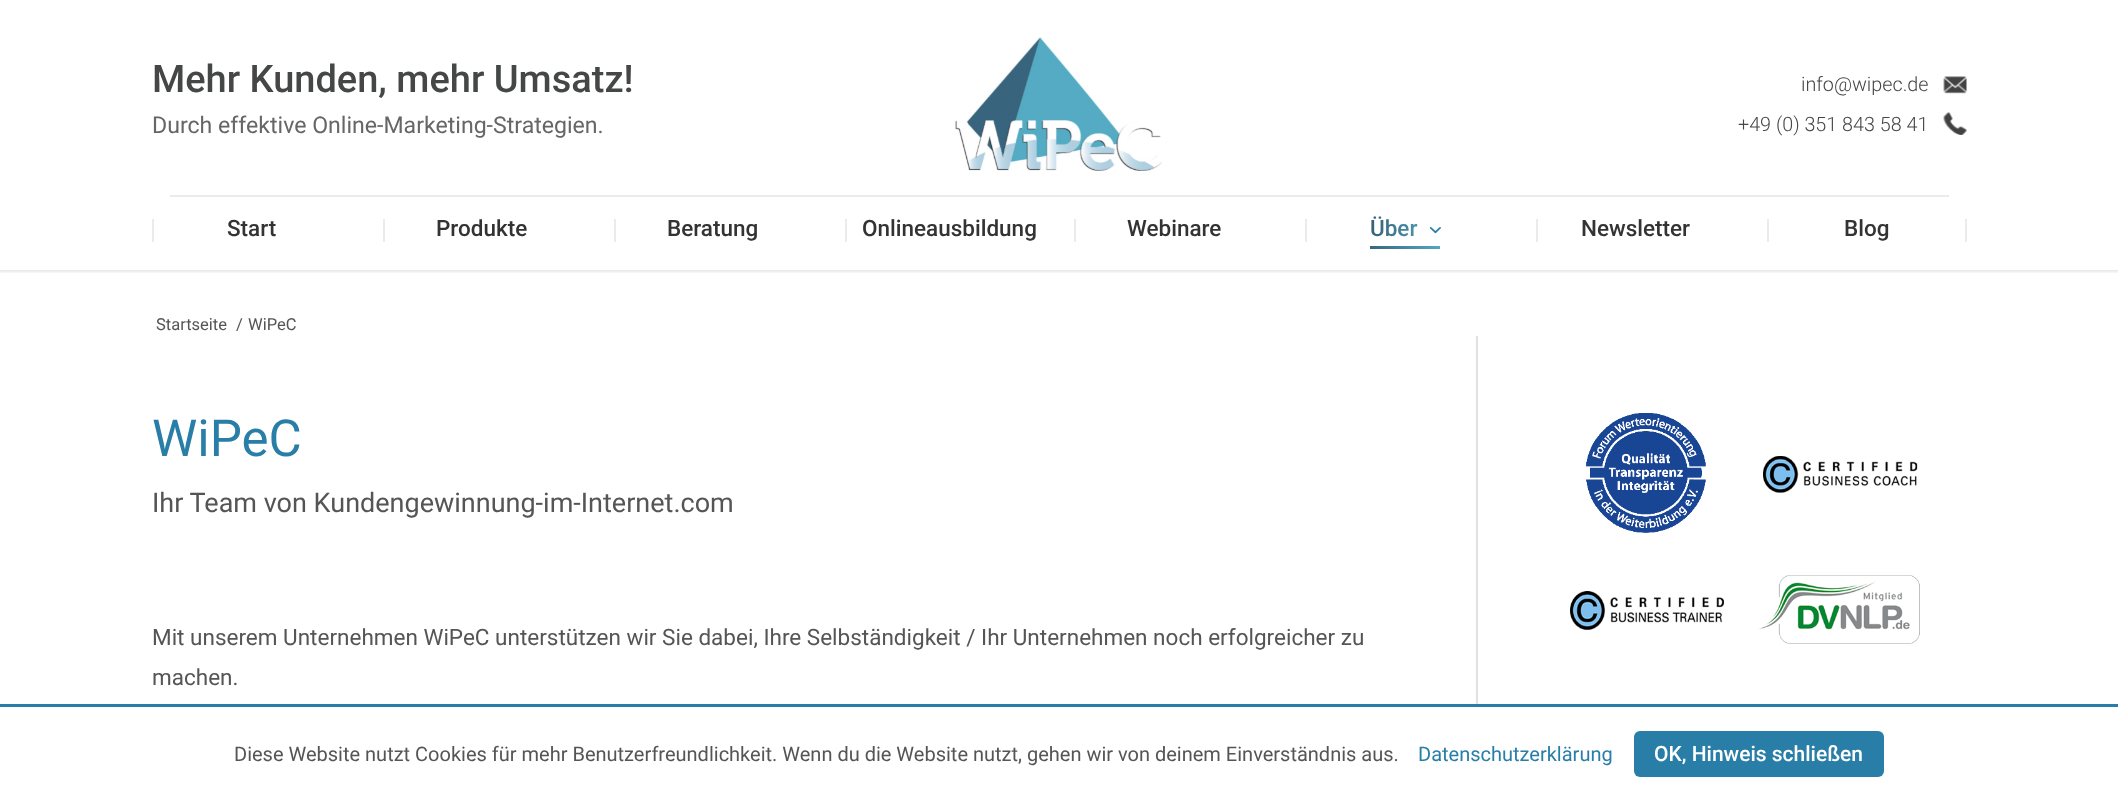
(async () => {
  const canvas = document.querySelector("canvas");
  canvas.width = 2118;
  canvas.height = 800;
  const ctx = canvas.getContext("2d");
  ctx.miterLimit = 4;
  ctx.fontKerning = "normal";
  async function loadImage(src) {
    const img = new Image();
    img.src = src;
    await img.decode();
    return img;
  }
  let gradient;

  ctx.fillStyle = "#ffffff";
  ctx.fillRect(0, 0, 2118, 800);
  ctx.save();
  ctx.beginPath();
  ctx.rect(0, 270, 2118, 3);
  ctx.clip();
  ctx.fillStyle = "rgba(0, 0, 0, 0.1)";
  ctx.filter = "blur(1.5px)";
  ctx.beginPath();
  ctx.rect(-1, -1, 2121, 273);
  ctx.fill();
  ctx.filter = "none";
  ctx.restore();
  ctx.drawImage(await loadImage("img/1.png"), 955, 37, 207, 134);
  ctx.drawImage(await loadImage("img/2.png"), 1943, 76, 24, 18);
  ctx.drawImage(await loadImage("img/3.png"), 1943, 112, 24, 23);
  for (const [x, y, w, h, color] of [
    [170, 195, 1779, 2, "#ebebeb"],
    [152, 219, 2, 23, "#ebebeb"],
    [383, 219, 2, 23, "#ebebeb"],
    [614, 219, 2, 23, "#ebebeb"],
    [845, 219, 2, 23, "#ebebeb"],
    [1074, 219, 2, 23, "#ebebeb"],
    [1305, 219, 2, 23, "#ebebeb"],
  ]) {
    ctx.fillStyle = color;
    ctx.fillRect(x, y, w, h);
  }
  ctx.drawImage(await loadImage("img/4.png"), 1429, 227, 12, 7);
  gradient = ctx.createLinearGradient(1395, 264, 1414, 231);
  gradient.addColorStop(0, "#37647c");
  gradient.addColorStop(1, "#53aac3");
  ctx.fillStyle = gradient;
  ctx.fillRect(1370, 246, 70, 3);
  for (const [x, y, w, h, color] of [
    [1536, 219, 2, 23, "#ebebeb"],
    [1767, 219, 2, 23, "#ebebeb"],
    [1965, 219, 2, 23, "#ebebeb"],
    [1476, 336, 2, 368, "#e1e1e1"],
  ]) {
    ctx.fillStyle = color;
    ctx.fillRect(x, y, w, h);
  }
  ctx.drawImage(await loadImage("img/5.png"), 1585, 413, 121, 120);
  ctx.drawImage(await loadImage("img/6.png"), 1763, 456, 155, 37);
  ctx.drawImage(await loadImage("img/7.png"), 1570, 591, 154, 39);
  ctx.drawImage(await loadImage("img/8.png"), 1758, 575, 162, 69);
  ctx.fillStyle = "#297ea8";
  ctx.fillRect(0, 704, 2118, 3);
  ctx.beginPath();
  ctx.roundRect(1634, 731, 250, 46, 6);
  ctx.fill();
  ctx.font = "500 38px Roboto";
  ctx.fillStyle = "#454646";
  ctx.fillText("Mehr Kunden, mehr Umsatz!", 152, 92);
  ctx.font = "23.1px Roboto";
  ctx.fillStyle = "#666666";
  ctx.fillText("Durch effektive Online-Marketing-Strategien.", 152, 133);
  ctx.font = "300 19.75px Roboto";
  ctx.fillStyle = "#454646";
  ctx.fillText("info@wipec.de", 1801, 91);
  ctx.fillText("+49 (0) 351 843 58 41", 1738, 131);
  ctx.font = "500 22.5px Roboto";
  ctx.fillStyle = "#333333";
  for (const [text, x, y] of [
    ["Start", 227, 236],
    ["Produkte", 436, 236],
    ["Beratung", 667, 236],
    ["Onlineausbildung", 862, 236],
    ["Webinare", 1127, 236],
  ]) {
    ctx.fillText(text, x, y);
  }
  gradient = ctx.createLinearGradient(1343, 228, 1440, 228);
  gradient.addColorStop(0.32, "#37647c");
  gradient.addColorStop(1, "#53aac3");
  ctx.fillStyle = gradient;
  ctx.fillText("Über", 1370, 236);
  ctx.fillStyle = "#333333";
  ctx.fillText("Newsletter", 1581, 236);
  ctx.fillText("Blog", 1844, 236);
  ctx.font = "16.5px Roboto";
  ctx.fillStyle = "#555555";
  for (const [text, x, y] of [
    ["Startseite", 156, 330],
    ["/", 236, 330],
    ["WiPeC", 248, 330],
  ]) {
    ctx.fillText(text, x, y);
  }
  ctx.font = "51px Roboto";
  ctx.fillStyle = "#297ea8";
  ctx.fillText("WiPeC", 152, 456);
  ctx.font = "27px Roboto";
  ctx.fillStyle = "#555555";
  ctx.fillText("Ihr Team von Kundengewinnung-im-Internet.com", 152, 512);
  ctx.font = "22.5px Roboto";
  ctx.fillText("Mit unserem Unternehmen WiPeC unterstützen wir Sie dabei, Ihre Selbständigkeit / Ihr Unternehmen noch erfolgreicher zu", 152, 645);
  ctx.fillText("machen.", 152, 685);
  ctx.font = "20px Roboto";
  ctx.fillText("Diese Website nutzt Cookies für mehr Benutzerfreundlichkeit. Wenn du die Website nutzt, gehen wir von deinem Einverständnis aus.", 234, 761);
  ctx.fillStyle = "#297ea8";
  ctx.fillText("Datenschutzerklärung", 1418, 761);
  ctx.font = "500 21px Roboto";
  ctx.fillStyle = "#ffffff";
  ctx.fillText("OK, Hinweis schließen", 1654, 761);
})();
